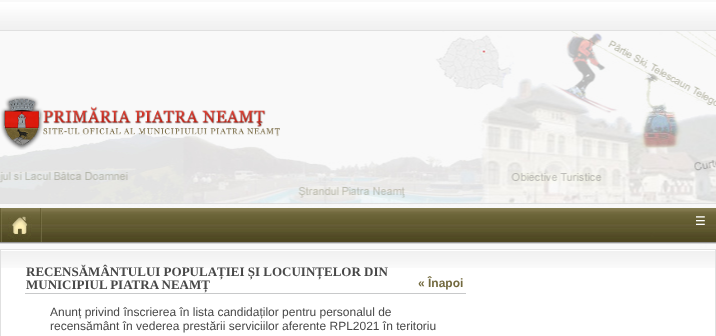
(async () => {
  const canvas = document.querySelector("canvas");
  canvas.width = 716;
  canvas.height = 336;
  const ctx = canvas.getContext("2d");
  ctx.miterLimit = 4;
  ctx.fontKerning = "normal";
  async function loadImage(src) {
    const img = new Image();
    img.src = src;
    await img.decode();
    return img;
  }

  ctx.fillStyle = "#f9f9f9";
  ctx.fillRect(0, 0, 716, 336);
  ctx.drawImage(await loadImage("img/1.png"), 0, 2, 716, 29);
  ctx.drawImage(await loadImage("img/2.png"), 0, 31, 716, 218);
  ctx.drawImage(await loadImage("img/3.png"), 0, 95, 280, 55);
  ctx.drawImage(await loadImage("img/4.png"), 0, 208, 42, 34);
  ctx.fillStyle = "#ffffff";
  ctx.fillRect(1, 250, 714, 86);
  ctx.drawImage(await loadImage("img/5.png"), 1, 251, 714, 17);
  ctx.strokeStyle = "#e0e0e0";
  ctx.strokeRect(0.5, 249.5, 715, 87);
  ctx.fillStyle = "#c8c9ca";
  ctx.fillRect(25, 293, 441, 1);
  ctx.font = "12px DejaVu Sans";
  ctx.fillStyle = "#ffffff";
  ctx.fillText("☰", 695, 225);
  ctx.font = "bold 13px Liberation Serif";
  ctx.fillStyle = "#484848";
  ctx.fillText("RECENSĂMÂNTULUI POPULAȚIEI ȘI LOCUINȚELOR DIN", 26, 276);
  ctx.fillText("MUNICIPIUL PIATRA NEAMȚ", 26, 289);
  ctx.font = "bold 12px Liberation Sans";
  ctx.fillStyle = "#736a3f";
  ctx.fillText("« Înapoi", 418, 287);
  ctx.font = "12px Liberation Sans";
  ctx.fillStyle = "#484848";
  ctx.fillText("Anunț privind înscrierea în lista candidaților pentru personalul de", 50, 316);
  ctx.fillText("recensământ în vederea prestării serviciilor aferente RPL2021 în teritoriu", 50, 330);
})();
